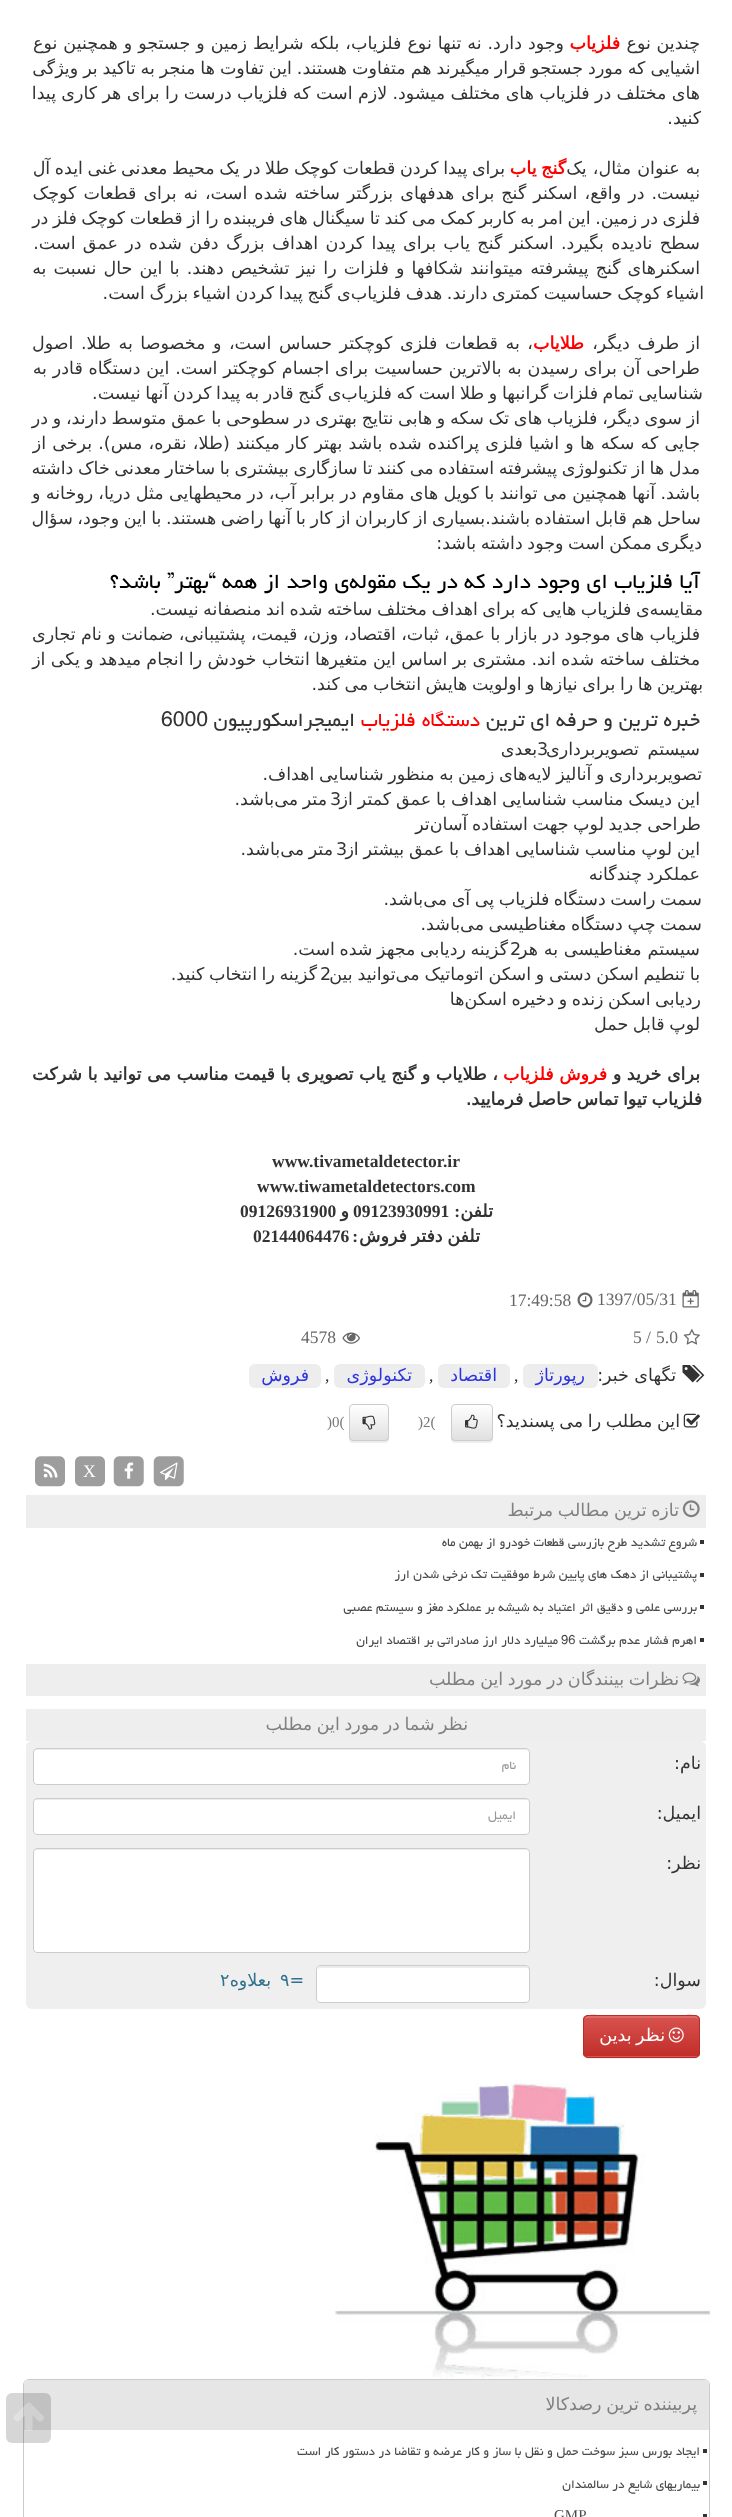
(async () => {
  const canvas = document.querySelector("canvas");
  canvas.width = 732;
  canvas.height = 2517;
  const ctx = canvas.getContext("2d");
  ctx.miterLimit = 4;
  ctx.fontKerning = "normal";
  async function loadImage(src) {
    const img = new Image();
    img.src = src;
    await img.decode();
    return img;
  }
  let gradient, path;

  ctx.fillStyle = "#ffffff";
  ctx.fillRect(0, 0, 732, 2517);
  ctx.drawImage(await loadImage("img/1.png"), 682, 1290, 17, 18);
  ctx.drawImage(await loadImage("img/2.png"), 577, 1292, 16, 16);
  ctx.drawImage(await loadImage("img/3.png"), 683, 1329, 17, 16);
  ctx.drawImage(await loadImage("img/4.png"), 342, 1332, 18, 12);
  ctx.drawImage(await loadImage("img/5.png"), 682, 1365, 23, 18);
  ctx.fillStyle = "#ededed";
  ctx.beginPath();
  ctx.roundRect(523, 1364, 75, 24, 6);
  ctx.fill();
  ctx.beginPath();
  ctx.roundRect(438, 1364, 72, 24, 6);
  ctx.fill();
  ctx.beginPath();
  ctx.roundRect(334, 1364, 91, 24, 6);
  ctx.fill();
  ctx.beginPath();
  ctx.roundRect(249, 1364, 72, 24, 6);
  ctx.fill();
  ctx.drawImage(await loadImage("img/6.png"), 683, 1413, 17, 15);
  ctx.fillStyle = "rgba(0, 0, 0, 0.07)";
  ctx.filter = "blur(0.5px)";
  ctx.beginPath();
  ctx.roundRect(451, 1405, 42, 38, 4);
  ctx.fill();
  ctx.filter = "none";
  ctx.save();
  ctx.beginPath();
  ctx.roundRect(451, 1404, 42, 37, 4);
  ctx.clip();
  gradient = ctx.createLinearGradient(472, 1405, 472, 1440);
  gradient.addColorStop(0, "#ffffff");
  gradient.addColorStop(1, "#e0e0e0");
  ctx.fillStyle = gradient;
  ctx.fillRect(451, 1405, 42, 35);
  ctx.restore();
  ctx.beginPath();
  ctx.roundRect(451.5, 1404.5, 41, 36, 3.5);
  ctx.strokeStyle = "#cccccc";
  ctx.stroke();
  ctx.drawImage(await loadImage("img/7.png"), 465, 1414, 13, 15);
  ctx.filter = "blur(0.5px)";
  ctx.beginPath();
  ctx.roundRect(349, 1405, 40, 38, 4);
  ctx.fill();
  ctx.filter = "none";
  ctx.save();
  ctx.beginPath();
  ctx.roundRect(349, 1404, 40, 37, 4);
  ctx.clip();
  gradient = ctx.createLinearGradient(369, 1405, 369, 1440);
  gradient.addColorStop(0, "#ffffff");
  gradient.addColorStop(1, "#e0e0e0");
  ctx.fillStyle = gradient;
  ctx.fillRect(349, 1405, 40, 35);
  ctx.restore();
  ctx.beginPath();
  ctx.roundRect(349.5, 1404.5, 39, 36, 3.5);
  ctx.stroke();
  ctx.drawImage(await loadImage("img/8.png"), 362, 1415, 14, 15);
  ctx.drawImage(await loadImage("img/9.png"), 153, 1456, 31, 31);
  ctx.drawImage(await loadImage("img/10.png"), 160, 1462, 18, 18);
  ctx.drawImage(await loadImage("img/9.png"), 113, 1456, 31, 31);
  ctx.drawImage(await loadImage("img/11.png"), 124, 1462, 10, 17);
  ctx.drawImage(await loadImage("img/12.png"), 75, 1456, 30, 31);
  ctx.drawImage(await loadImage("img/12.png"), 35, 1456, 30, 31);
  ctx.drawImage(await loadImage("img/13.png"), 43, 1463, 15, 15);
  ctx.fillStyle = "#eeeeee";
  ctx.fillRect(26, 1495, 680, 33);
  ctx.drawImage(await loadImage("img/14.png"), 682, 1500, 18, 18);
  for (const [x, y, w, h, color] of [
    [700, 1540, 4, 4, "#333333"],
    [700, 1573, 4, 4, "#333333"],
    [700, 1605, 4, 4, "#333333"],
    [700, 1638, 4, 4, "#333333"],
    [26, 1664, 680, 32, "#eeeeee"],
  ]) {
    ctx.fillStyle = color;
    ctx.fillRect(x, y, w, h);
  }
  ctx.drawImage(await loadImage("img/15.png"), 682, 1672, 18, 15);
  ctx.fillRect(26, 1709, 680, 32);
  ctx.fillStyle = "#efefef";
  ctx.beginPath();
  ctx.roundRect(26, 1741, 680, 268, 6);
  ctx.fill();
  ctx.fillStyle = "#ffffff";
  ctx.beginPath();
  ctx.roundRect(33, 1748, 497, 37, 4);
  ctx.fill();
  ctx.fillStyle = "#ececec";
  path = new Path2D("M36 1750H526C528 1750 529 1751 529 1752C529 1750 528 1749 526 1749H36C35 1749 34 1750 34 1752C34 1751 35 1750 36 1750Z");
  ctx.fill(path);
  ctx.beginPath();
  ctx.roundRect(33.5, 1748.5, 496, 36, 3.5);
  ctx.stroke();
  ctx.fillStyle = "#ffffff";
  ctx.beginPath();
  ctx.roundRect(33, 1798, 497, 37, 4);
  ctx.fill();
  ctx.fillStyle = "#ececec";
  path = new Path2D("M36 1800H526C528 1800 529 1801 529 1802C529 1800 528 1799 526 1799H36C35 1799 34 1800 34 1802C34 1801 35 1800 36 1800Z");
  ctx.fill(path);
  ctx.beginPath();
  ctx.roundRect(33.5, 1798.5, 496, 36, 3.5);
  ctx.stroke();
  ctx.fillStyle = "#ffffff";
  ctx.beginPath();
  ctx.roundRect(33, 1848, 497, 105, 4);
  ctx.fill();
  ctx.fillStyle = "#ececec";
  path = new Path2D("M36 1850H526C528 1850 529 1851 529 1852C529 1850 528 1849 526 1849H36C35 1849 34 1850 34 1852C34 1851 35 1850 36 1850Z");
  ctx.fill(path);
  ctx.beginPath();
  ctx.roundRect(33.5, 1848.5, 496, 104, 3.5);
  ctx.stroke();
  ctx.fillStyle = "#ffffff";
  ctx.beginPath();
  ctx.roundRect(316, 1965, 214, 38, 4);
  ctx.fill();
  ctx.fillStyle = "#ececec";
  path = new Path2D("M320 1968H526C528 1968 529 1969 529 1970V1968C529 1967 528 1966 526 1966H320C319 1966 318 1967 318 1968V1970C318 1969 319 1968 320 1968Z");
  ctx.fill(path);
  ctx.beginPath();
  ctx.roundRect(316.5, 1965.5, 213, 37, 3.5);
  ctx.stroke();
  ctx.fillStyle = "rgba(0, 0, 0, 0.07)";
  ctx.filter = "blur(0.5px)";
  ctx.beginPath();
  ctx.roundRect(583, 2016, 117, 43, 5);
  ctx.fill();
  ctx.filter = "none";
  ctx.fillStyle = "#d9534f";
  ctx.beginPath();
  ctx.roundRect(583, 2015, 117, 43, 5);
  ctx.fill();
  ctx.save();
  ctx.beginPath();
  ctx.roundRect(583, 2015, 117, 43, 5);
  ctx.clip();
  gradient = ctx.createLinearGradient(641, 2016, 641, 2056);
  gradient.addColorStop(0, "#d9534f");
  gradient.addColorStop(1, "#c12e2a");
  ctx.fillStyle = gradient;
  ctx.fillRect(583, 2016, 117, 40);
  ctx.restore();
  ctx.fillStyle = "#de6c69";
  path = new Path2D("M588 2018H695C697 2018 699 2019 699 2021C699 2011 681 2016 677 2016H606C602 2016 584 2011 584 2021C584 2019 585 2018 588 2018Z");
  ctx.fill(path);
  ctx.beginPath();
  ctx.roundRect(583.5, 2015.5, 116, 42, 4.5);
  ctx.strokeStyle = "#b92c28";
  ctx.stroke();
  ctx.drawImage(await loadImage("img/16.png"), 668, 2027, 16, 16);
  ctx.drawImage(await loadImage("img/17.png"), 335, 2083, 375, 296);
  ctx.beginPath();
  ctx.roundRect(23.5, 2379.5, 686, 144, 5.5);
  ctx.strokeStyle = "#cbcbcb";
  ctx.stroke();
  ctx.fillStyle = "#e6e6e6";
  ctx.beginPath();
  ctx.roundRect(24, 2380, 685, 50, [6, 6, 0, 0]);
  ctx.fill();
  for (const [x, y, w, h, color] of [
    [703, 2449, 4, 4, "#333333"],
    [703, 2481, 4, 4, "#333333"],
    [703, 2514, 4, 3, "#333333"],
  ]) {
    ctx.fillStyle = color;
    ctx.fillRect(x, y, w, h);
  }
  ctx.fillStyle = "rgba(0, 0, 0, 0.16)";
  ctx.beginPath();
  ctx.roundRect(6, 2393, 45, 50, 6);
  ctx.fill();
  ctx.drawImage(await loadImage("img/18.png"), 13, 2402, 31, 29);
  ctx.direction = "rtl";
  ctx.font = "17.5px DejaVu Sans";
  ctx.fillStyle = "#333333";
  ctx.fillText("چندین نوع", 700, 49);
  ctx.font = "bold 17.5px DejaVu Sans";
  ctx.fillStyle = "#ff0000";
  ctx.fillText("فلزیاب", 620, 49);
  ctx.wordSpacing = "0.4px";
  ctx.font = "17.5px DejaVu Sans";
  ctx.fillStyle = "#333333";
  ctx.fillText("وجود دارد. نه تنها نوع فلزیاب، بلکه شرایط زمین و جستجو و همچنین نوع", 564, 49);
  ctx.wordSpacing = "-0.6px";
  ctx.fillText("اشیایی که مورد جستجو قرار میگیرند هم متفاوت هستند. این تفاوت ها منجر به تاکید بر ویژگی", 700, 74);
  ctx.wordSpacing = "-0.25px";
  ctx.fillText("های مختلف در فلزیاب های مختلف میشود. لازم است که فلزیاب‌ درست را برای هر کاری پیدا", 700, 99);
  ctx.wordSpacing = "0px";
  ctx.fillText("کنید.", 701, 124);
  ctx.wordSpacing = "0.5px";
  ctx.fillText("به عنوان مثال، یک", 700, 174);
  ctx.wordSpacing = "-1px";
  ctx.font = "bold 17.5px DejaVu Sans";
  ctx.fillStyle = "#ff0000";
  ctx.fillText("گنج یاب", 566, 174);
  ctx.font = "17.5px DejaVu Sans";
  ctx.fillStyle = "#333333";
  ctx.fillText("برای پیدا کردن قطعات کوچک طلا در یک محیط معدنی غنی ایده آل", 505, 174);
  ctx.wordSpacing = "1.5px";
  ctx.fillText("نیست. در واقع، اسکنر گنج برای هدفهای بزرگتر ساخته شده است، نه برای قطعات کوچک", 700, 199);
  ctx.wordSpacing = "-1px";
  ctx.fillText("فلزی در زمین. این امر به کاربر کمک می کند تا سیگنال های فریبنده را از قطعات کوچک فلز در", 700, 224);
  ctx.wordSpacing = "1.75px";
  ctx.fillText("سطح نادیده بگیرد. اسکنر گنج یاب برای پیدا کردن اهداف بزرگ دفن شده در عمق است.", 700, 249);
  ctx.wordSpacing = "1.5px";
  ctx.fillText("اسکنرهای گنج پیشرفته میتوانند شکافها و فلزات را نیز تشخیص دهند. با این حال نسبت به", 700, 274);
  ctx.wordSpacing = "-1px";
  ctx.fillText("اشیاء کوچک حساسیت کمتری دارند. هدف فلزیاب‌ی گنج پیدا کردن اشیاء بزرگ است.", 704, 299);
  ctx.wordSpacing = "2px";
  ctx.fillText("از طرف دیگر،", 700, 349);
  ctx.wordSpacing = "0px";
  ctx.font = "bold 17.5px DejaVu Sans";
  ctx.fillStyle = "#ff0000";
  ctx.fillText("طلایاب", 584, 349);
  ctx.wordSpacing = "2px";
  ctx.font = "17.5px DejaVu Sans";
  ctx.fillStyle = "#333333";
  ctx.fillText("، به قطعات فلزی کوچکتر حساس است، و مخصوصا به طلا. اصول", 533, 349);
  ctx.wordSpacing = "0.25px";
  ctx.fillText("طراحی آن برای رسیدن به بالاترین حساسیت برای اجسام کوچکتر است. این دستگاه قادر به", 700, 374);
  ctx.wordSpacing = "-1px";
  ctx.fillText("شناسایی تمام فلزات گرانبها و طلا است که فلزیاب‌ی گنج قادر به پیدا کردن آنها نیست.", 703, 399);
  ctx.wordSpacing = "-0.8px";
  ctx.fillText("از سوی دیگر، فلزیاب های تک سکه و هابی نتایج بهتری در سطوحی با عمق متوسط دارند، و در", 700, 424);
  ctx.wordSpacing = "0.6px";
  ctx.fillText("جایی که سکه ها و اشیا فلزی پراکنده شده باشد بهتر کار میکنند (طلا، نقره، مس). برخی از", 700, 449);
  ctx.wordSpacing = "-1px";
  ctx.fillText("مدل ها از تکنولوژی پیشرفته استفاده می کنند تا سازگاری بیشتری با ساختار معدنی خاک داشته", 700, 474);
  ctx.wordSpacing = "-0.3px";
  ctx.fillText("باشد. آنها همچنین می توانند با کویل های مقاوم در برابر آب، در محیطهایی مثل دریا، روخانه و", 700, 499);
  ctx.wordSpacing = "-1px";
  ctx.fillText("ساحل هم قابل استفاده باشند.بسیاری از کاربران از کار با آنها راضی هستند. با این وجود، سؤال", 701, 524);
  ctx.fillText("دیگری ممکن است وجود داشته باشد:", 702, 549);
  ctx.wordSpacing = "0px";
  ctx.font = "26.25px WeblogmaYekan";
  ctx.fillStyle = "#000000";
  ctx.fillText("آیا فلزیاب ای وجود دارد که در یک مقوله‌ی واحد از همه “بهتر” باشد؟", 700, 588);
  ctx.wordSpacing = "-1px";
  ctx.font = "17.5px DejaVu Sans";
  ctx.fillStyle = "#333333";
  ctx.fillText("مقایسه‌ی فلزیاب هایی که برای اهداف مختلف ساخته شده اند منصفانه نیست.", 703, 615);
  ctx.wordSpacing = "-0.25px";
  ctx.fillText("فلزیاب های موجود در بازار با عمق، ثبات، اقتصاد، وزن، قیمت، پشتیبانی، ضمانت و نام تجاری", 700, 640);
  ctx.wordSpacing = "-0.3px";
  ctx.fillText("مختلف ساخته شده اند. مشتری بر اساس این متغیرها انتخاب خودش را انجام میدهد و یکی از", 700, 665);
  ctx.wordSpacing = "-1px";
  ctx.fillText("بهترین ها را برای نیازها و اولویت هایش انتخاب می کند.", 703, 690);
  ctx.wordSpacing = "0px";
  ctx.font = "24.5px WeblogmaYekan";
  ctx.fillText("خبره ترین و حرفه ای ترین", 700, 726);
  ctx.fillStyle = "#ff0000";
  ctx.fillText("دستگاه فلزیاب", 480, 726);
  ctx.fillStyle = "#333333";
  ctx.fillText("ایمیجراسکورپیون", 355, 726);
  ctx.direction = "ltr";
  ctx.fillText("6000", 161, 726);
  ctx.font = "17.5px DejaVu Sans";
  ctx.fillText("3", 537, 755);
  ctx.wordSpacing = "3px";
  ctx.direction = "rtl";
  ctx.fillText("سیستم تصویربرداری", 700, 755);
  ctx.wordSpacing = "0px";
  ctx.fillText("بعدی", 537, 755);
  ctx.wordSpacing = "-1px";
  ctx.fillText("تصویربرداری و آنالیز لایه‌های زمین به منظور شناسایی اهداف.", 702, 780);
  ctx.wordSpacing = "0px";
  ctx.direction = "ltr";
  ctx.fillText("3", 330, 805);
  ctx.wordSpacing = "-0.75px";
  ctx.direction = "rtl";
  ctx.fillText("این دیسک مناسب شناسایی اهداف با عمق کمتر از", 700, 805);
  ctx.wordSpacing = "-1px";
  ctx.fillText("متر می‌باشد.", 327, 805);
  ctx.fillText("طراحی جدید لوپ جهت استفاده آسان‌تر", 701, 830);
  ctx.wordSpacing = "0px";
  ctx.direction = "ltr";
  ctx.fillText("3", 336, 855);
  ctx.wordSpacing = "-0.75px";
  ctx.direction = "rtl";
  ctx.fillText("این لوپ مناسب شناسایی اهداف با عمق بیشتر از", 700, 855);
  ctx.wordSpacing = "-1px";
  for (const [text, x, y] of [
    ["متر می‌باشد.", 333, 855],
    ["عملکرد چندگانه", 700, 880],
    ["سمت راست دستگاه فلزیاب پی آی می‌باشد.", 702, 905],
    ["سمت چپ دستگاه مغناطیسی می‌باشد.", 702, 930],
    ["گزینه ردیابی مجهز شده است.", 508, 955],
  ]) {
    ctx.fillText(text, x, y);
  }
  ctx.wordSpacing = "0px";
  ctx.direction = "ltr";
  ctx.fillText("2", 510, 955);
  ctx.wordSpacing = "0.25px";
  ctx.direction = "rtl";
  ctx.fillText("سیستم مغناطیسی به هر", 700, 955);
  ctx.wordSpacing = "-0.75px";
  ctx.fillText("با تنطیم اسکن دستی و اسکن اتوماتیک می‌توانید بین", 700, 980);
  ctx.wordSpacing = "0px";
  ctx.direction = "ltr";
  ctx.fillText("2", 320, 980);
  ctx.wordSpacing = "-1px";
  ctx.direction = "rtl";
  for (const [text, x, y] of [
    ["گزینه را انتخاب کنید.", 317, 980],
    ["ردیابی اسکن زنده و دخیره اسکن‌ها", 701, 1005],
    ["لوپ قابل حمل", 700, 1030],
  ]) {
    ctx.fillText(text, x, y);
  }
  ctx.wordSpacing = "0px";
  ctx.font = "bold 17.5px DejaVu Sans";
  ctx.fillText("برای خرید و", 700, 1080);
  ctx.fillStyle = "#ff0000";
  ctx.fillText("فروش فلزیاب", 607, 1080);
  ctx.fillStyle = "#333333";
  ctx.fillText("، طلایاب و گنج یاب تصویری با قیمت مناسب می توانید با شرکت", 498, 1080);
  ctx.wordSpacing = "-1px";
  ctx.fillText("فلزیاب تیوا تماس حاصل فرمایید.", 702, 1105);
  ctx.wordSpacing = "0px";
  ctx.direction = "ltr";
  ctx.font = "bold 17.5px Liberation Serif";
  ctx.fillText("www.tivametaldetector.ir", 272, 1167);
  ctx.fillText("www.tiwametaldetectors.com", 257, 1192);
  ctx.direction = "rtl";
  ctx.font = "bold 17.5px DejaVu Sans";
  ctx.fillText("تلفن", 493, 1217);
  ctx.font = "bold 17.5px Liberation Serif";
  ctx.fillText(":", 460, 1217);
  ctx.direction = "ltr";
  ctx.fillText("09123930991", 353, 1217);
  ctx.direction = "rtl";
  ctx.font = "bold 17.5px DejaVu Sans";
  ctx.fillText("و", 349, 1217);
  ctx.direction = "ltr";
  ctx.font = "bold 17.5px Liberation Serif";
  ctx.fillText("09126931900", 240, 1217);
  ctx.wordSpacing = "-1px";
  ctx.direction = "rtl";
  ctx.font = "bold 17.5px DejaVu Sans";
  ctx.fillText("تلفن دفتر فروش", 480, 1242);
  ctx.wordSpacing = "0px";
  ctx.font = "bold 17.5px Liberation Serif";
  ctx.fillText(":", 358, 1242);
  ctx.direction = "ltr";
  ctx.fillText("02144064476", 253, 1242);
  ctx.font = "17.5px Liberation Serif";
  ctx.fillStyle = "#666666";
  for (const [text, x, y] of [
    ["1397/05/31", 597, 1305],
    ["17:49:58", 509, 1306],
    ["5.0", 656, 1343],
    ["/", 646, 1343],
    ["5", 633, 1343],
    ["4578", 301, 1343],
  ]) {
    ctx.fillText(text, x, y);
  }
  ctx.direction = "rtl";
  ctx.font = "17.5px DejaVu Sans";
  ctx.fillStyle = "#333333";
  ctx.fillText("تگهای خبر:", 676, 1381);
  ctx.fillStyle = "#2b34e1";
  ctx.fillText("رپورتاژ", 585, 1381);
  ctx.direction = "ltr";
  ctx.font = "17.5px Liberation Serif";
  ctx.fillStyle = "#333333";
  ctx.fillText(",", 514, 1381);
  ctx.direction = "rtl";
  ctx.font = "17.5px DejaVu Sans";
  ctx.fillStyle = "#2b34e1";
  ctx.fillText("اقتصاد", 497, 1381);
  ctx.direction = "ltr";
  ctx.font = "17.5px Liberation Serif";
  ctx.fillStyle = "#333333";
  ctx.fillText(",", 429, 1381);
  ctx.direction = "rtl";
  ctx.font = "17.5px DejaVu Sans";
  ctx.fillStyle = "#2b34e1";
  ctx.fillText("تكنولوژی", 412, 1381);
  ctx.direction = "ltr";
  ctx.font = "17.5px Liberation Serif";
  ctx.fillStyle = "#333333";
  ctx.fillText(",", 325, 1381);
  ctx.direction = "rtl";
  ctx.font = "17.5px DejaVu Sans";
  ctx.fillStyle = "#2b34e1";
  ctx.fillText("فروش", 309, 1381);
  ctx.wordSpacing = "-1px";
  ctx.fillStyle = "#333333";
  ctx.fillText("این مطلب را می پسندید؟", 680, 1427);
  ctx.wordSpacing = "0px";
  ctx.direction = "ltr";
  ctx.font = "15px Liberation Serif";
  ctx.fillStyle = "#777777";
  ctx.fillText(")2(", 418, 1427);
  ctx.fillText(")0(", 327, 1427);
  ctx.font = "17.5px Liberation Serif";
  ctx.fillStyle = "#ffffff";
  ctx.fillText("X", 83, 1477);
  ctx.wordSpacing = "-1px";
  ctx.direction = "rtl";
  ctx.font = "17.5px DejaVu Sans";
  ctx.fillStyle = "#808080";
  ctx.fillText("تازه ترین مطالب مرتبط", 679, 1516);
  ctx.wordSpacing = "0px";
  ctx.font = "15px WeblogmaYekan";
  ctx.fillStyle = "#4a4a4a";
  for (const [text, x, y] of [
    ["شروع تشدید طرح بازرسی قطعات خودرو از بهمن ماه", 697, 1546],
    ["پشتیبانی از دهک های پایین شرط موفقیت تک نرخی شدن ارز", 697, 1578],
    ["بررسی علمی و دقیق اثر اعتیاد به شیشه بر عملکرد مغز و سیستم عصبی", 697, 1611],
    ["اهرم فشار عدم برگشت", 697, 1644],
  ]) {
    ctx.fillText(text, x, y);
  }
  ctx.direction = "ltr";
  ctx.fillText("96", 561, 1644);
  ctx.direction = "rtl";
  ctx.fillText("میلیارد دلار ارز صادراتی بر اقتصاد ایران", 558, 1644);
  ctx.wordSpacing = "-1px";
  ctx.font = "17.5px DejaVu Sans";
  ctx.fillStyle = "#808080";
  ctx.fillText("نظرات بینندگان در مورد این مطلب", 679, 1685);
  ctx.fillText("نظر شما در مورد این مطلب", 468, 1730);
  ctx.wordSpacing = "0px";
  ctx.fillStyle = "#333333";
  ctx.fillText("نام:", 701, 1769);
  ctx.font = "15px WeblogmaYekan";
  ctx.fillStyle = "#999999";
  ctx.fillText("نام", 516, 1769);
  ctx.font = "17.5px DejaVu Sans";
  ctx.fillStyle = "#333333";
  ctx.fillText("ایمیل:", 701, 1819);
  ctx.font = "15px WeblogmaYekan";
  ctx.fillStyle = "#999999";
  ctx.fillText("ایمیل", 516, 1819);
  ctx.font = "17.5px DejaVu Sans";
  ctx.fillStyle = "#333333";
  ctx.fillText("نظر:", 701, 1869);
  ctx.fillText("سوال:", 701, 1986);
  ctx.direction = "ltr";
  ctx.fillStyle = "#31708f";
  ctx.fillText("۹=", 280, 1986);
  ctx.direction = "rtl";
  ctx.fillText("بعلاوه", 271, 1986);
  ctx.direction = "ltr";
  ctx.fillText("۲", 220, 1986);
  ctx.wordSpacing = "-1px";
  ctx.direction = "rtl";
  ctx.fillStyle = "#ffffff";
  ctx.fillText("نظر بدین", 665, 2041);
  ctx.fillStyle = "#808080";
  ctx.fillText("پربیننده ترین رصدکالا", 697, 2410);
  ctx.wordSpacing = "0px";
  ctx.font = "15px WeblogmaYekan";
  ctx.fillStyle = "#4a4a4a";
  ctx.fillText("ایجاد بورس سبز سوخت حمل و نقل با ساز و کار عرضه و تقاضا در دستور کار است", 700, 2455);
  ctx.fillText("بیماریهای شایع در سالمندان", 700, 2488);
  ctx.direction = "ltr";
  ctx.font = "15px Liberation Serif";
  ctx.fillText("GMP", 554, 2520);
})();
